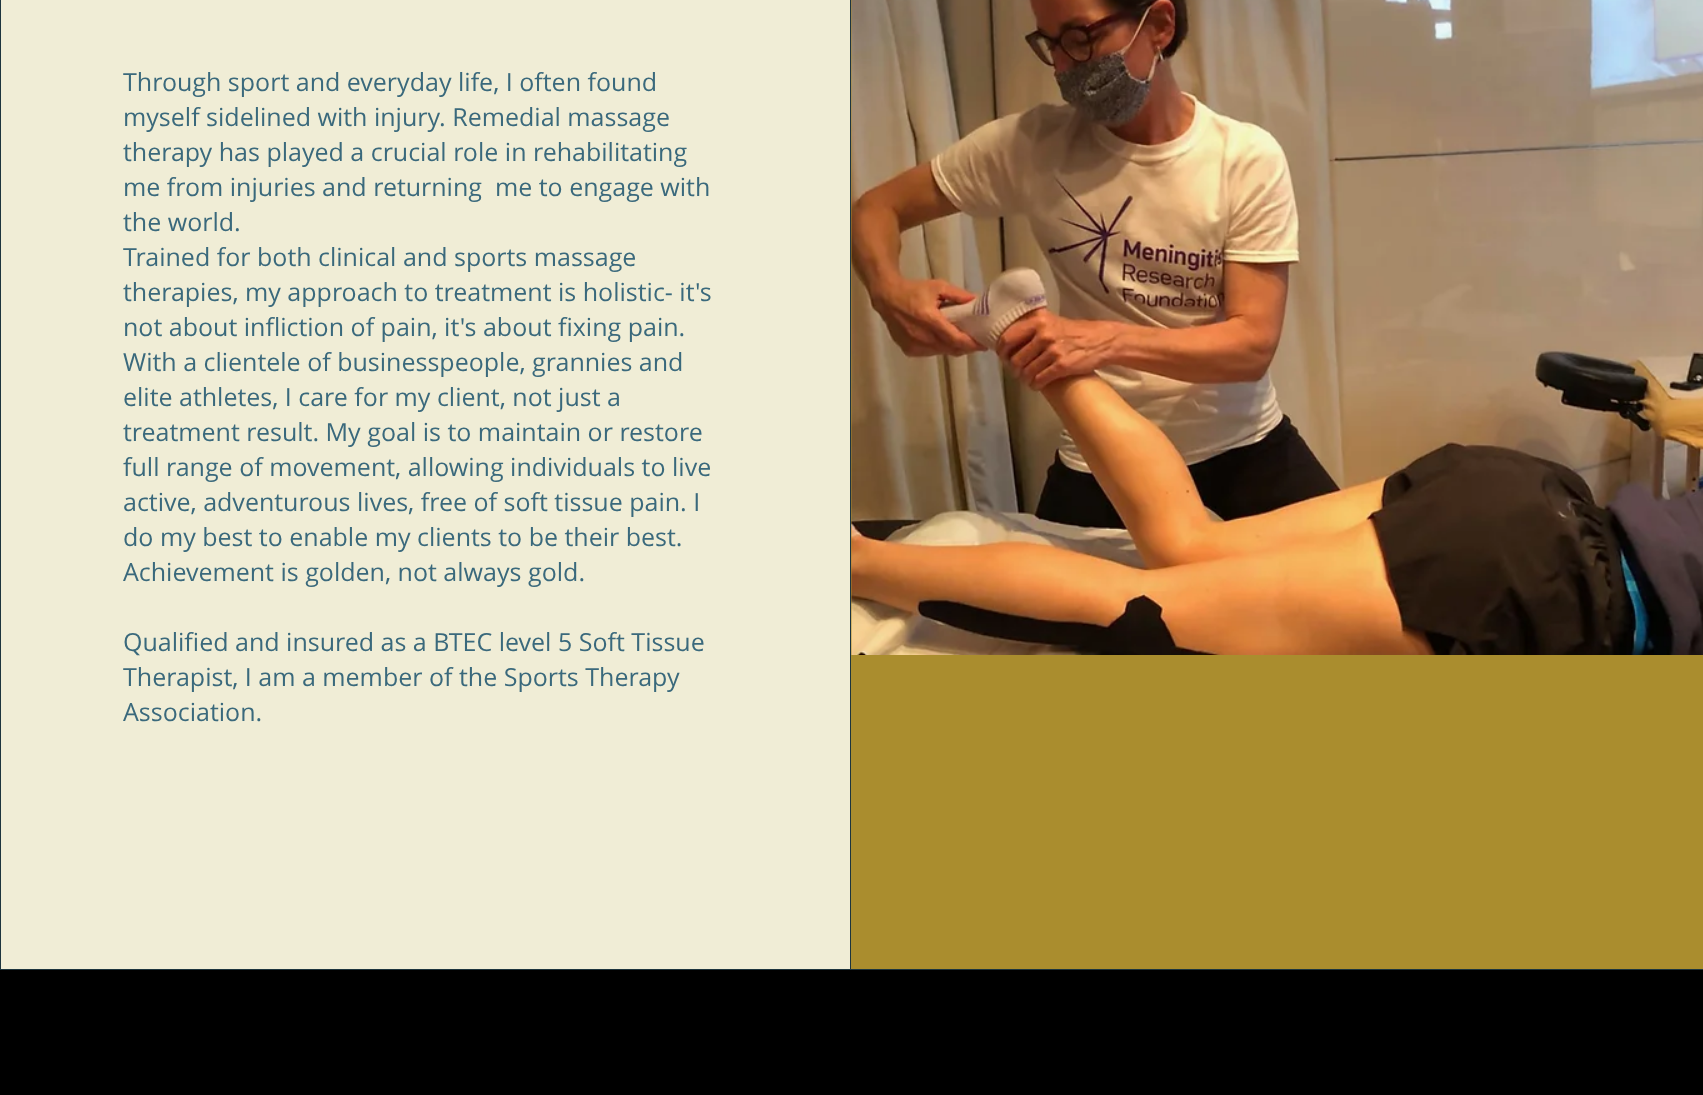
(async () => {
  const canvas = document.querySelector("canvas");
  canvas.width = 1703;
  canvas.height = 1095;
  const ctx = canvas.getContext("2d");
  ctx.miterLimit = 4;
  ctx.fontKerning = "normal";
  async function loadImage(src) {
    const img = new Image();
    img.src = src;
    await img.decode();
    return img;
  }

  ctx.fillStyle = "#1d353e";
  ctx.fillRect(0, 0, 1703, 1095);
  ctx.fillStyle = "#f0edd6";
  ctx.fillRect(1, 0, 849, 969);
  ctx.fillStyle = "#aa8d2e";
  ctx.fillRect(851, 0, 852, 969);
  ctx.drawImage(await loadImage("img/1.png"), 851, 0, 852, 655);
  ctx.fillStyle = "#000000";
  ctx.fillRect(0, 970, 1703, 125);
  ctx.font = "25px Open Sans";
  ctx.fillStyle = "#3a697c";
  for (const [text, x, y] of [
    ["Through sport and everyday life, I often found", 123, 91],
    ["myself sidelined with injury. Remedial massage", 123, 126],
    ["therapy has played a crucial role in rehabilitating", 123, 161],
    ["me from injuries and returning  me to engage with", 123, 196],
    ["the world.", 123, 231],
    ["Trained for both clinical and sports massage", 123, 266],
    ["therapies, my approach to treatment is holistic- it's", 123, 301],
    ["not about infliction of pain, it's about fixing pain.", 123, 336],
    ["With a clientele of businesspeople, grannies and", 123, 371],
    ["elite athletes, I care for my client, not just a", 123, 406],
    ["treatment result. My goal is to maintain or restore", 123, 441],
    ["full range of movement, allowing individuals to live", 123, 476],
    ["active, adventurous lives, free of soft tissue pain. I", 123, 511],
    ["do my best to enable my clients to be their best.", 123, 546],
    ["Achievement is golden, not always gold.", 123, 581],
    ["Qualified and insured as a BTEC level 5 Soft Tissue", 123, 651],
    ["Therapist, I am a member of the Sports Therapy", 123, 686],
    ["Association.", 123, 721],
  ]) {
    ctx.fillText(text, x, y);
  }
})();
